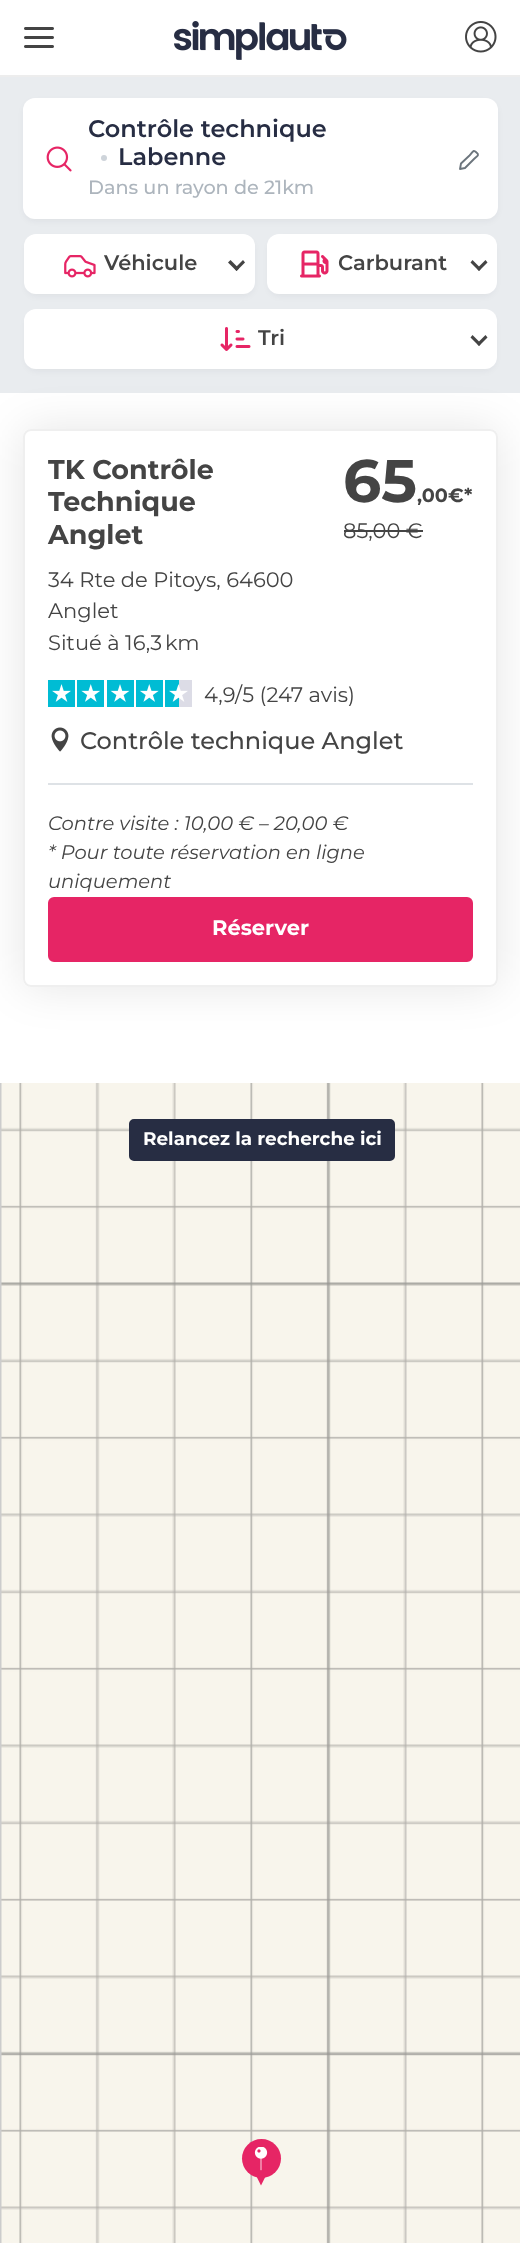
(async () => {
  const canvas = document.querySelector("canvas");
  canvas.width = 520;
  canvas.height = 2243;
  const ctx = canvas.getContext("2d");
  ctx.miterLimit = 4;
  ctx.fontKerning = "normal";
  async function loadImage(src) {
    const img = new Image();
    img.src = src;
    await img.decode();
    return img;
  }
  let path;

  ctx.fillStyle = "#ffffff";
  ctx.fillRect(0, 0, 520, 2243);
  ctx.fillStyle = "#ededed";
  ctx.fillRect(0, 75, 520, 2);
  ctx.drawImage(await loadImage("img/1.png"), 24, 27, 30, 21);
  ctx.drawImage(await loadImage("img/2.png"), 174, 21, 173, 39);
  ctx.drawImage(await loadImage("img/3.png"), 465, 21, 32, 32);
  ctx.fillStyle = "#e9ecef";
  ctx.fillRect(0, 77, 520, 316);
  ctx.fillStyle = "rgba(26, 27, 31, 0.05)";
  ctx.filter = "blur(3px)";
  ctx.beginPath();
  ctx.roundRect(24, 102, 473, 119, 11);
  ctx.fill();
  ctx.filter = "none";
  ctx.fillStyle = "#ffffff";
  ctx.beginPath();
  ctx.roundRect(23, 98, 475, 121, 12);
  ctx.fill();
  ctx.drawImage(await loadImage("img/4.png"), 46, 146, 26, 26);
  ctx.fillStyle = "#ced4da";
  ctx.beginPath();
  ctx.arc(104, 158, 3, 0, Math.PI * 2);
  ctx.fill();
  path = new Path2D("M460 169L465 168L473.5 159.5C477 156 480 155.5 476.5 152.5C473 149 473 152 469.5 155.5L461 163.5Z");
  ctx.strokeStyle = "#6c757d";
  ctx.lineWidth = 1.9;
  ctx.lineCap = "round";
  ctx.lineJoin = "round";
  ctx.stroke(path);
  ctx.fillStyle = "rgba(26, 27, 31, 0.05)";
  ctx.filter = "blur(3px)";
  ctx.beginPath();
  ctx.roundRect(26, 239, 228, 57, 11);
  ctx.fill();
  ctx.filter = "none";
  ctx.fillStyle = "#ffffff";
  ctx.beginPath();
  ctx.roundRect(24, 234, 231, 60, 12);
  ctx.fill();
  ctx.drawImage(await loadImage("img/5.png"), 64, 255, 32, 23);
  ctx.fillStyle = "#444444";
  path = new Path2D("M243 260L245 262.5L236.5 271L234.5 268.5Z");
  ctx.fill(path);
  path = new Path2D("M230.5 260L239 268.5L236.5 271L228 262.5Z");
  ctx.fill(path);
  ctx.fillStyle = "rgba(26, 27, 31, 0.05)";
  ctx.filter = "blur(3px)";
  ctx.beginPath();
  ctx.roundRect(269, 239, 226, 57, 11);
  ctx.fill();
  ctx.filter = "none";
  ctx.fillStyle = "#ffffff";
  ctx.beginPath();
  ctx.roundRect(267, 234, 230, 60, 12);
  ctx.fill();
  ctx.drawImage(await loadImage("img/6.png"), 300, 250, 29, 28);
  ctx.fillStyle = "#444444";
  path = new Path2D("M485.5 260L487.5 262.5L479 271L477 268.5Z");
  ctx.fill(path);
  path = new Path2D("M472.5 260L481 268.5L479 271L470.5 262.5Z");
  ctx.fill(path);
  ctx.fillStyle = "rgba(26, 27, 31, 0.05)";
  ctx.filter = "blur(3px)";
  ctx.beginPath();
  ctx.roundRect(26, 314, 469, 57, 11);
  ctx.fill();
  ctx.filter = "none";
  ctx.fillStyle = "#ffffff";
  ctx.beginPath();
  ctx.roundRect(24, 309, 473, 60, 12);
  ctx.fill();
  ctx.drawImage(await loadImage("img/7.png"), 220, 327, 31, 24);
  ctx.fillStyle = "#444444";
  path = new Path2D("M485.5 335L487.5 337.5L479 346L477 343.5Z");
  ctx.fill(path);
  path = new Path2D("M472.5 335L481 343.5L479 346L470.5 337.5Z");
  ctx.fill(path);
  ctx.save();
  path = new Path2D("M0 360H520V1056H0ZM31 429H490C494.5 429 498 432.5 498 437V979C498 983.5 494.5 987 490 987H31C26.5 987 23 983.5 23 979V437C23 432.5 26.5 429 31 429Z");
  ctx.clip(path, "evenodd");
  ctx.fillStyle = "rgba(0, 0, 0, 0.1)";
  ctx.filter = "blur(22.5px)";
  ctx.beginPath();
  ctx.roundRect(23, 429, 475, 558, 8);
  ctx.fill();
  ctx.filter = "none";
  ctx.restore();
  ctx.beginPath();
  ctx.roundRect(24, 430, 473, 556, 7);
  ctx.strokeStyle = "#efefef";
  ctx.lineWidth = 2;
  ctx.lineJoin = "miter";
  ctx.stroke();
  ctx.fillRect(344, 530, 79, 2);
  ctx.drawImage(await loadImage("img/8.png"), 48, 680, 144, 27);
  ctx.drawImage(await loadImage("img/9.png"), 51, 727, 18, 25);
  ctx.fillStyle = "#dee2e6";
  ctx.fillRect(48, 783, 425, 2);
  ctx.fillStyle = "#e62565";
  ctx.beginPath();
  ctx.roundRect(49, 898, 423, 63, 5);
  ctx.fill();
  ctx.strokeStyle = "#e62565";
  ctx.stroke();
  ctx.fillStyle = "#cccccc";
  ctx.fillRect(0, 1083, 2, 1160);
  ctx.drawImage(await loadImage("img/10.png"), 1, 1083, 519, 1160);
  ctx.fillStyle = "#e62565";
  ctx.beginPath();
  ctx.arc(261.5, 2158.5, 19.5, 0, Math.PI * 2);
  ctx.fill();
  ctx.drawImage(await loadImage("img/11.png"), 254, 2147, 14, 24);
  path = new Path2D("M253.5 2170.5H268.5L261 2185.5Z");
  ctx.fill(path);
  ctx.fillStyle = "#272d43";
  ctx.beginPath();
  ctx.roundRect(130, 1120, 264, 40, 4);
  ctx.fill();
  ctx.strokeStyle = "#272d43";
  ctx.stroke();
  ctx.font = "600 24px Montserrat";
  ctx.fillText("Contrôle technique", 88, 137);
  ctx.fillText("Labenne", 118, 165);
  ctx.font = "500 19.25px Montserrat";
  ctx.fillStyle = "#adb5bd";
  ctx.fillText("Dans un rayon de 21km", 88, 194);
  ctx.font = "600 21px Montserrat";
  ctx.fillStyle = "#444444";
  for (const [text, x, y] of [
    ["Véhicule", 104, 270],
    ["Carburant", 338, 270],
    ["Tri", 258, 345],
  ]) {
    ctx.fillText(text, x, y);
  }
  ctx.font = "bold 27px Montserrat";
  for (const [text, x, y] of [
    ["TK Contrôle", 48, 479],
    ["Technique", 48, 511],
    ["Anglet", 48, 544],
  ]) {
    ctx.fillText(text, x, y);
  }
  ctx.font = "21px Montserrat";
  for (const [text, x, y] of [
    ["34 Rte de Pitoys, 64600", 48, 587],
    ["Anglet", 48, 618],
    ["Situé à 16,3 km", 48, 650],
  ]) {
    ctx.fillText(text, x, y);
  }
  ctx.font = "bold 60px Montserrat";
  ctx.fillText("65", 343, 502);
  ctx.font = "bold 19.25px Montserrat";
  ctx.fillText(",00€*", 417, 502);
  ctx.font = "21px Montserrat";
  ctx.fillText("85,00 €", 343, 538);
  ctx.fillText("4,9/5 (247 avis)", 204, 702);
  ctx.font = "500 24px Montserrat";
  ctx.fillText("Contrôle technique Anglet", 80, 749);
  ctx.font = "italic 19.5px Montserrat";
  for (const [text, x, y] of [
    ["Contre visite : 10,00 € – 20,00 €", 48, 830],
    ["* Pour toute réservation en ligne", 48, 859],
    ["uniquement", 48, 888],
  ]) {
    ctx.fillText(text, x, y);
  }
  ctx.font = "bold 21px Montserrat";
  ctx.fillStyle = "#ffffff";
  ctx.fillText("Réserver", 212, 935);
  ctx.font = "bold 18.4px Montserrat";
  ctx.fillText("Relancez la recherche ici", 143, 1145);
})();
